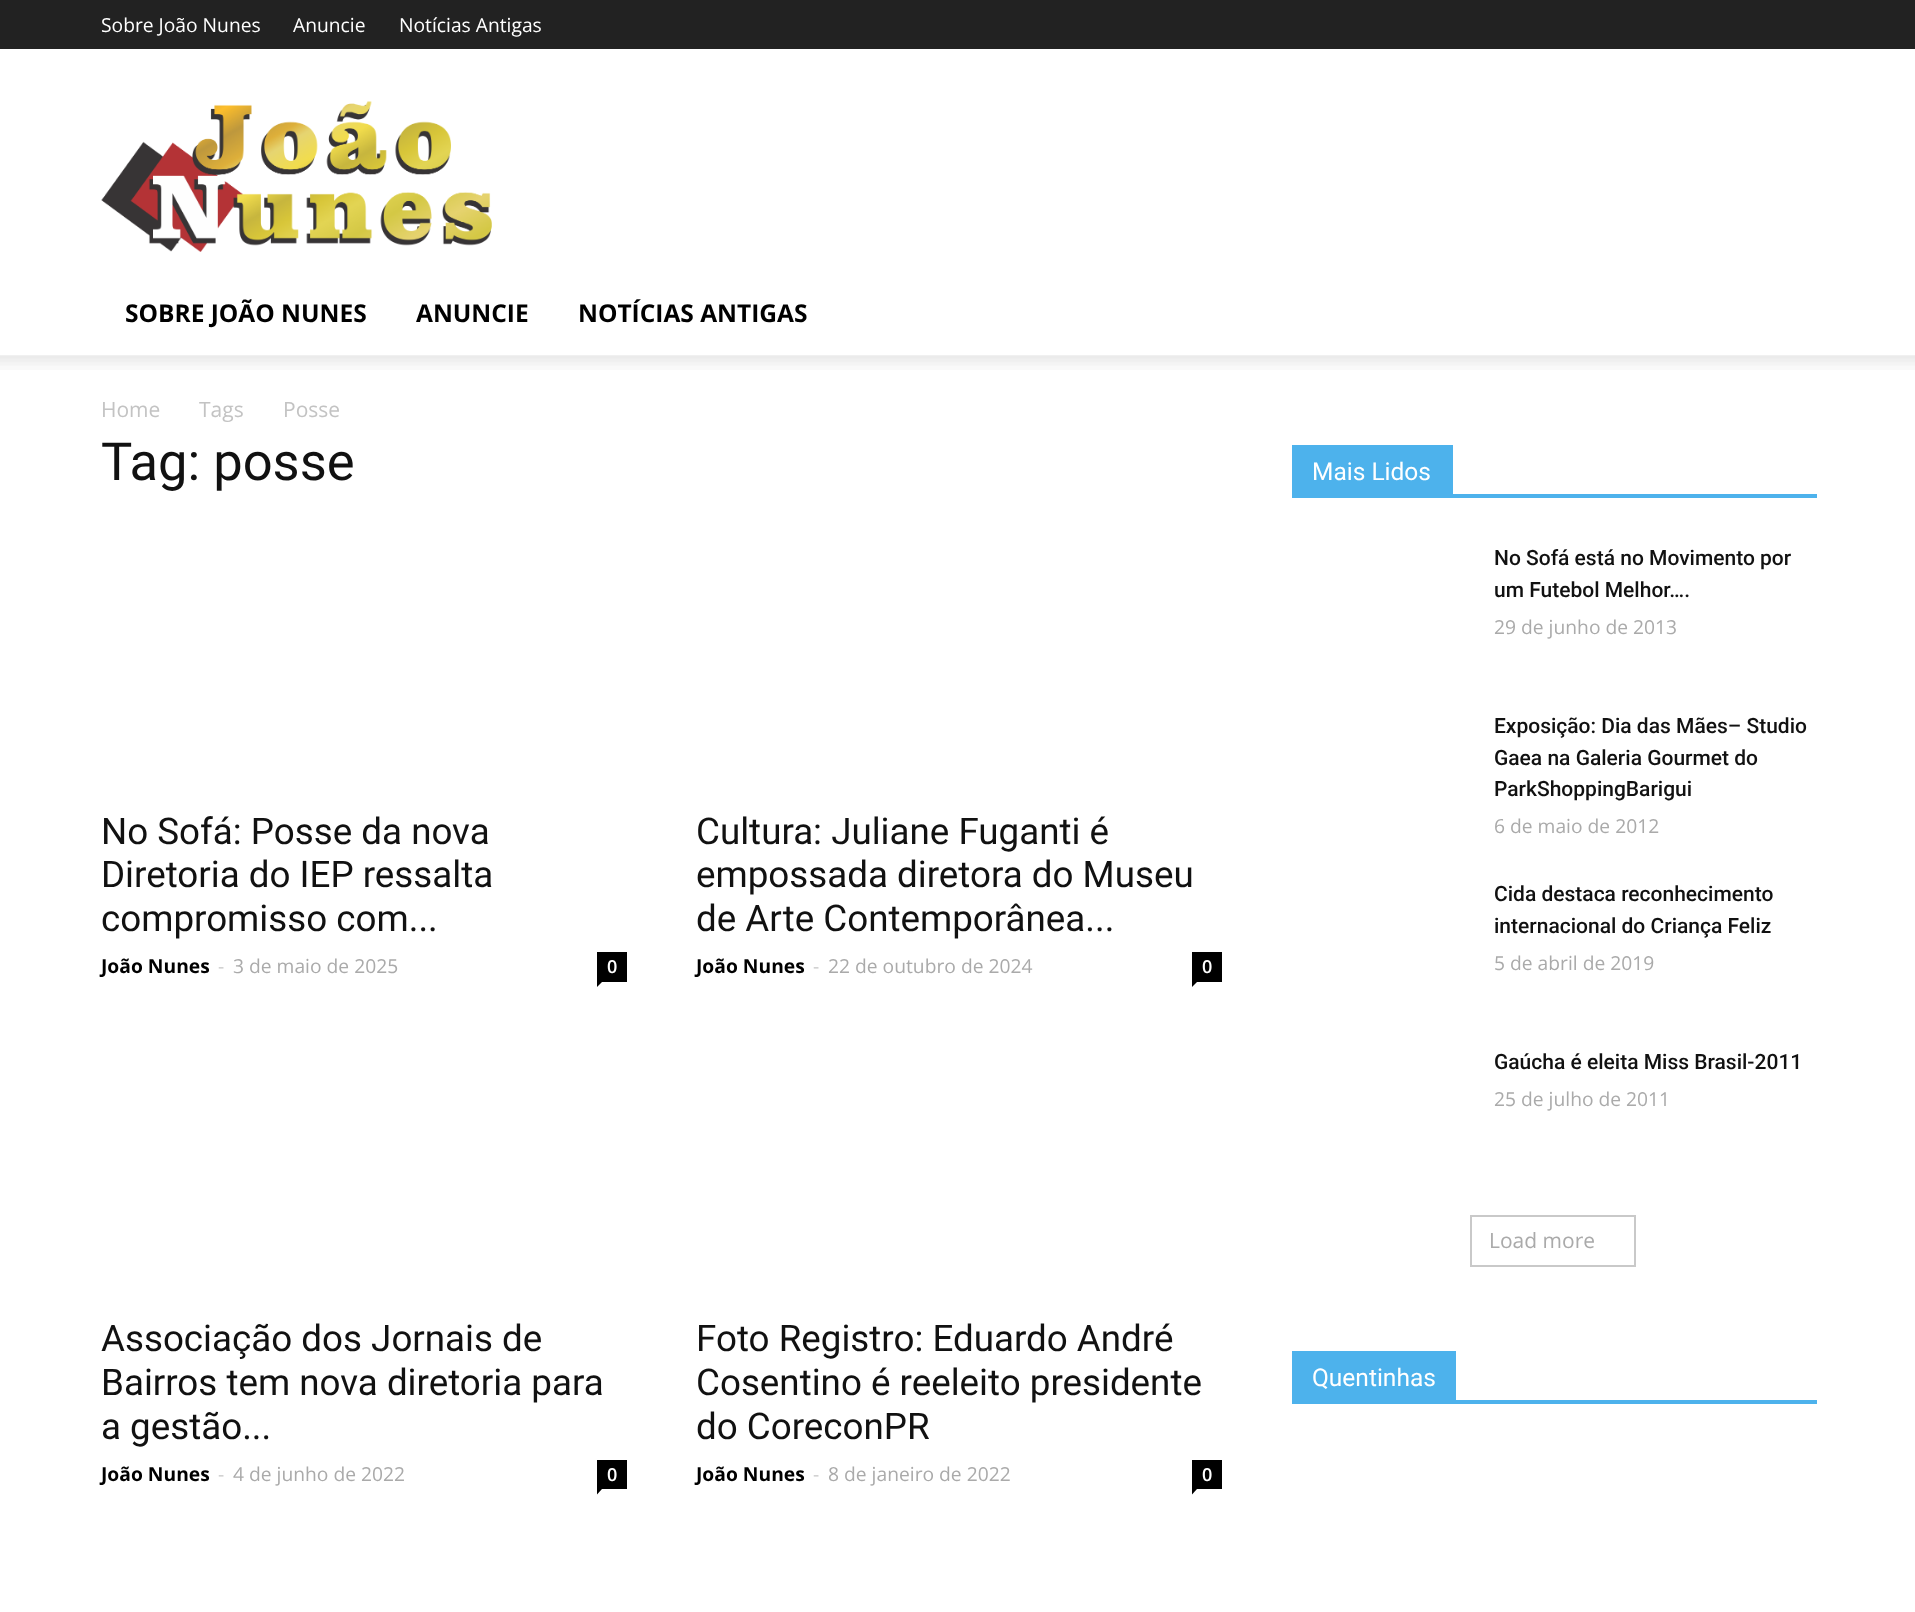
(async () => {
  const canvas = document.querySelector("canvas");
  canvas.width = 1915;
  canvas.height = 1612;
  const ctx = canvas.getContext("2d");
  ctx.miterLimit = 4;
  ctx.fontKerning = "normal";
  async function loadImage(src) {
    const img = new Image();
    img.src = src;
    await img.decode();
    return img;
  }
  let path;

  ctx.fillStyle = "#ffffff";
  ctx.fillRect(0, 0, 1915, 1612);
  ctx.fillStyle = "#222222";
  ctx.fillRect(0, 0, 1915, 49);
  ctx.drawImage(await loadImage("img/1.png"), 101, 101, 391, 151);
  ctx.drawImage(await loadImage("img/2.png"), 0, 355, 1915, 15);
  ctx.fillStyle = "#000000";
  ctx.fillRect(597, 952, 30, 30);
  path = new Path2D("M597 982H602L597 987Z");
  ctx.fill(path);
  ctx.fillRect(1192, 952, 30, 30);
  path = new Path2D("M1192 982H1197L1192 987Z");
  ctx.fill(path);
  ctx.fillRect(597, 1460, 30, 29);
  path = new Path2D("M597 1489H602L597 1494.5Z");
  ctx.fill(path);
  ctx.fillRect(1192, 1460, 30, 29);
  path = new Path2D("M1192 1489H1197L1192 1494.5Z");
  ctx.fill(path);
  ctx.fillStyle = "#4db2ec";
  ctx.fillRect(1292, 494, 525, 4);
  ctx.fillRect(1292, 445, 161, 49);
  ctx.strokeStyle = "#c9c9c9";
  ctx.lineWidth = 2;
  ctx.strokeRect(1471, 1216, 164, 50);
  ctx.fillRect(1292, 1400, 525, 4);
  ctx.fillRect(1292, 1351, 164, 49);
  ctx.font = "19.25px Open Sans";
  ctx.fillStyle = "#ffffff";
  for (const [text, x, y] of [
    ["Sobre João Nunes", 101, 32],
    ["Anuncie", 293, 32],
    ["Notícias Antigas", 399, 32],
  ]) {
    ctx.fillText(text, x, y);
  }
  ctx.font = "bold 24.5px Open Sans";
  ctx.fillStyle = "#000000";
  for (const [text, x, y] of [
    ["SOBRE JOÃO NUNES", 125, 322],
    ["ANUNCIE", 416, 322],
    ["NOTÍCIAS ANTIGAS", 578, 322],
  ]) {
    ctx.fillText(text, x, y);
  }
  ctx.font = "21px Open Sans";
  ctx.fillStyle = "#c3c3c3";
  for (const [text, x, y] of [
    ["Home", 101, 417],
    ["Tags", 199, 417],
    ["Posse", 283, 417],
  ]) {
    ctx.fillText(text, x, y);
  }
  ctx.font = "52.5px Roboto";
  ctx.fillStyle = "#111111";
  ctx.fillText("Tag: posse", 101, 480);
  ctx.font = "36.75px Roboto";
  for (const [text, x, y] of [
    ["No Sofá: Posse da nova", 101, 844],
    ["Diretoria do IEP ressalta", 101, 887],
    ["compromisso com...", 101, 931],
  ]) {
    ctx.fillText(text, x, y);
  }
  ctx.font = "bold 19.25px Open Sans";
  ctx.fillStyle = "#000000";
  ctx.fillText("João Nunes", 101, 973);
  ctx.font = "19.25px Open Sans";
  ctx.fillStyle = "#cccccc";
  ctx.fillText("-", 218, 973);
  ctx.fillStyle = "#aaaaaa";
  ctx.fillText("3 de maio de 2025", 233, 973);
  ctx.font = "600 18px Open Sans";
  ctx.fillStyle = "#ffffff";
  ctx.fillText("0", 607, 973);
  ctx.font = "36.75px Roboto";
  ctx.fillStyle = "#111111";
  for (const [text, x, y] of [
    ["Cultura: Juliane Fuganti é", 696, 844],
    ["empossada diretora do Museu", 696, 887],
    ["de Arte Contemporânea...", 696, 931],
  ]) {
    ctx.fillText(text, x, y);
  }
  ctx.font = "bold 19.25px Open Sans";
  ctx.fillStyle = "#000000";
  ctx.fillText("João Nunes", 696, 973);
  ctx.font = "19.25px Open Sans";
  ctx.fillStyle = "#cccccc";
  ctx.fillText("-", 813, 973);
  ctx.fillStyle = "#aaaaaa";
  ctx.fillText("22 de outubro de 2024", 828, 973);
  ctx.font = "600 18px Open Sans";
  ctx.fillStyle = "#ffffff";
  ctx.fillText("0", 1202, 973);
  ctx.font = "36.75px Roboto";
  ctx.fillStyle = "#111111";
  for (const [text, x, y] of [
    ["Associação dos Jornais de", 101, 1351],
    ["Bairros tem nova diretoria para", 101, 1395],
    ["a gestão...", 101, 1439],
  ]) {
    ctx.fillText(text, x, y);
  }
  ctx.font = "bold 19.25px Open Sans";
  ctx.fillStyle = "#000000";
  ctx.fillText("João Nunes", 101, 1481);
  ctx.font = "19.25px Open Sans";
  ctx.fillStyle = "#cccccc";
  ctx.fillText("-", 218, 1481);
  ctx.fillStyle = "#aaaaaa";
  ctx.fillText("4 de junho de 2022", 233, 1481);
  ctx.font = "600 18px Open Sans";
  ctx.fillStyle = "#ffffff";
  ctx.fillText("0", 607, 1481);
  ctx.font = "36.75px Roboto";
  ctx.fillStyle = "#111111";
  for (const [text, x, y] of [
    ["Foto Registro: Eduardo André", 696, 1351],
    ["Cosentino é reeleito presidente", 696, 1395],
    ["do CoreconPR", 696, 1439],
  ]) {
    ctx.fillText(text, x, y);
  }
  ctx.font = "bold 19.25px Open Sans";
  ctx.fillStyle = "#000000";
  ctx.fillText("João Nunes", 696, 1481);
  ctx.font = "19.25px Open Sans";
  ctx.fillStyle = "#cccccc";
  ctx.fillText("-", 813, 1481);
  ctx.fillStyle = "#aaaaaa";
  ctx.fillText("8 de janeiro de 2022", 828, 1481);
  ctx.font = "600 18px Open Sans";
  ctx.fillStyle = "#ffffff";
  ctx.fillText("0", 1202, 1481);
  ctx.font = "24.5px Roboto";
  ctx.fillText("Mais Lidos", 1312, 480);
  ctx.font = "500 21px Roboto";
  ctx.fillStyle = "#111111";
  ctx.fillText("No Sofá está no Movimento por", 1494, 565);
  ctx.fillText("um Futebol Melhor….", 1494, 597);
  ctx.font = "19.25px Open Sans";
  ctx.fillStyle = "#aaaaaa";
  ctx.fillText("29 de junho de 2013", 1494, 634);
  ctx.font = "500 21px Roboto";
  ctx.fillStyle = "#111111";
  for (const [text, x, y] of [
    ["Exposição: Dia das Mães– Studio", 1494, 733],
    ["Gaea na Galeria Gourmet do", 1494, 765],
    ["ParkShoppingBarigui", 1494, 796],
  ]) {
    ctx.fillText(text, x, y);
  }
  ctx.font = "19.25px Open Sans";
  ctx.fillStyle = "#aaaaaa";
  ctx.fillText("6 de maio de 2012", 1494, 833);
  ctx.font = "500 21px Roboto";
  ctx.fillStyle = "#111111";
  ctx.fillText("Cida destaca reconhecimento", 1494, 901);
  ctx.fillText("internacional do Criança Feliz", 1494, 933);
  ctx.font = "19.25px Open Sans";
  ctx.fillStyle = "#aaaaaa";
  ctx.fillText("5 de abril de 2019", 1494, 970);
  ctx.font = "500 21px Roboto";
  ctx.fillStyle = "#111111";
  ctx.fillText("Gaúcha é eleita Miss Brasil-2011", 1494, 1069);
  ctx.font = "19.25px Open Sans";
  ctx.fillStyle = "#aaaaaa";
  ctx.fillText("25 de julho de 2011", 1494, 1106);
  ctx.font = "21px Open Sans";
  ctx.fillText("Load more", 1489, 1248);
  ctx.font = "24.5px Roboto";
  ctx.fillStyle = "#ffffff";
  ctx.fillText("Quentinhas", 1312, 1386);
})();
